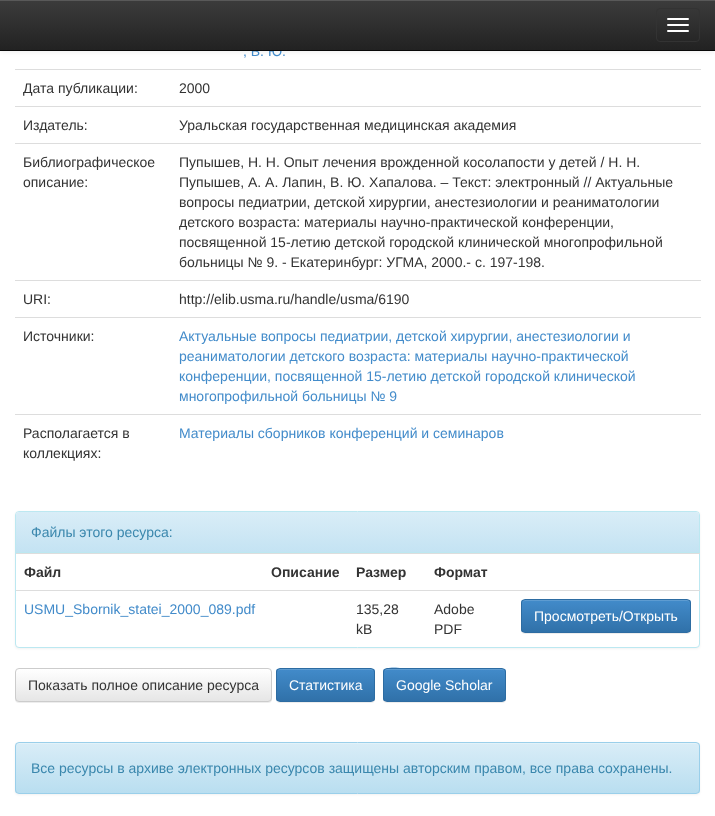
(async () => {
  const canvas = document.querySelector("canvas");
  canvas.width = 715;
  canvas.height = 816;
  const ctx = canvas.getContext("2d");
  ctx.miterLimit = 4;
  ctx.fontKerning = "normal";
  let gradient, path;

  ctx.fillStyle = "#ffffff";
  ctx.fillRect(0, 0, 715, 816);
  ctx.fillStyle = "rgba(0, 0, 0, 0.07)";
  ctx.filter = "blur(2.5px)";
  ctx.beginPath();
  ctx.rect(0, 1, 715, 51);
  ctx.fill();
  ctx.filter = "none";
  for (const [x, y, w, h, color] of [
    [0, 0, 715, 1, "#595959"],
    [15, 69, 686, 1, "#dddddd"],
    [15, 106, 686, 1, "#dddddd"],
    [15, 143, 686, 1, "#dddddd"],
    [15, 280, 686, 1, "#dddddd"],
    [15, 317, 686, 1, "#dddddd"],
    [15, 414, 686, 1, "#dddddd"],
  ]) {
    ctx.fillStyle = color;
    ctx.fillRect(x, y, w, h);
  }
  ctx.fillStyle = "rgba(0, 0, 0, 0.05)";
  ctx.filter = "blur(1px)";
  ctx.beginPath();
  ctx.roundRect(15, 512, 685, 137, 4);
  ctx.fill();
  ctx.filter = "none";
  ctx.fillStyle = "#ffffff";
  ctx.beginPath();
  ctx.roundRect(15.5, 511.5, 684, 136, 3.5);
  ctx.fill();
  ctx.strokeStyle = "#bce8f1";
  ctx.stroke();
  gradient = ctx.createLinearGradient(358, 512, 358, 552);
  gradient.addColorStop(0, "#d9edf7");
  gradient.addColorStop(1, "#c4e3f3");
  ctx.fillStyle = gradient;
  ctx.beginPath();
  ctx.roundRect(16, 512, 683, 40, [3, 3, 0, 0]);
  ctx.fill();
  for (const [x, y, w, h, color] of [
    [16, 552, 683, 1, "#bce8f1"],
    [16, 553, 684, 1, "#dddddd"],
    [16, 590, 684, 1, "#dddddd"],
  ]) {
    ctx.fillStyle = color;
    ctx.fillRect(x, y, w, h);
  }
  ctx.fillStyle = "rgba(0, 0, 0, 0.07)";
  ctx.filter = "blur(0.5px)";
  ctx.beginPath();
  ctx.roundRect(521, 600, 170, 34, 4);
  ctx.fill();
  ctx.filter = "none";
  ctx.save();
  ctx.beginPath();
  ctx.roundRect(521, 599, 170, 34, 4);
  ctx.clip();
  gradient = ctx.createLinearGradient(606, 600, 606, 632);
  gradient.addColorStop(0, "#428bca");
  gradient.addColorStop(1, "#3071a9");
  ctx.fillStyle = gradient;
  ctx.fillRect(521, 600, 170, 32);
  ctx.restore();
  ctx.fillStyle = "#5e9cd1";
  path = new Path2D("M525 601H687C689 601 690 602 690 604V603C690 601 689 600 687 600H525C523 600 522 601 522 603V604C522 602 523 601 525 601Z");
  ctx.fill(path);
  ctx.beginPath();
  ctx.roundRect(521.5, 599.5, 169, 33, 3.5);
  ctx.strokeStyle = "#2d6ca2";
  ctx.stroke();
  ctx.fillStyle = "rgba(0, 0, 0, 0.07)";
  ctx.filter = "blur(0.5px)";
  ctx.beginPath();
  ctx.roundRect(15, 669, 257, 34, 4);
  ctx.fill();
  ctx.filter = "none";
  ctx.save();
  ctx.beginPath();
  ctx.roundRect(15, 668, 257, 34, 4);
  ctx.clip();
  gradient = ctx.createLinearGradient(144, 669, 144, 701);
  gradient.addColorStop(0, "#ffffff");
  gradient.addColorStop(1, "#e6e6e6");
  ctx.fillStyle = gradient;
  ctx.fillRect(15, 669, 257, 32);
  ctx.restore();
  ctx.beginPath();
  ctx.roundRect(15.5, 668.5, 256, 33, 3.5);
  ctx.strokeStyle = "#cccccc";
  ctx.stroke();
  ctx.filter = "blur(0.5px)";
  ctx.beginPath();
  ctx.roundRect(276, 669, 99, 34, 4);
  ctx.fill();
  ctx.filter = "none";
  ctx.save();
  ctx.beginPath();
  ctx.roundRect(276, 668, 99, 34, 4);
  ctx.clip();
  gradient = ctx.createLinearGradient(326, 669, 326, 701);
  gradient.addColorStop(0, "#428bca");
  gradient.addColorStop(1, "#3071a9");
  ctx.fillStyle = gradient;
  ctx.fillRect(276, 669, 99, 32);
  ctx.restore();
  ctx.fillStyle = "#5e9cd1";
  path = new Path2D("M280 670H371C373 670 374 671 374 673C374 665 359 669 356 669H295C292 669 277 665 277 673C277 671 278 670 280 670Z");
  ctx.fill(path);
  ctx.beginPath();
  ctx.roundRect(276.5, 668.5, 98, 33, 3.5);
  ctx.strokeStyle = "#2d6ca2";
  ctx.stroke();
  ctx.fillStyle = "rgba(0, 0, 0, 0.07)";
  ctx.filter = "blur(0.5px)";
  ctx.beginPath();
  ctx.roundRect(383, 669, 123, 34, 4);
  ctx.fill();
  ctx.filter = "none";
  ctx.save();
  ctx.beginPath();
  ctx.roundRect(383, 668, 123, 34, 4);
  ctx.clip();
  gradient = ctx.createLinearGradient(445, 669, 445, 701);
  gradient.addColorStop(0, "#428bca");
  gradient.addColorStop(1, "#3071a9");
  ctx.fillStyle = gradient;
  ctx.fillRect(383, 669, 123, 32);
  ctx.restore();
  ctx.fillStyle = "#5e9cd1";
  path = new Path2D("M387 670H502C504 670 505 671 505 673C505 671 504 669 502 669H406C405 669 384 664 384 673C384 671 385 670 387 670Z");
  ctx.fill(path);
  ctx.beginPath();
  ctx.roundRect(383.5, 668.5, 122, 33, 3.5);
  ctx.stroke();
  ctx.fillStyle = "rgba(0, 0, 0, 0.05)";
  ctx.filter = "blur(1px)";
  ctx.beginPath();
  ctx.roundRect(15, 743, 685, 52, 4);
  ctx.fill();
  ctx.filter = "none";
  ctx.save();
  ctx.beginPath();
  ctx.roundRect(15, 742, 685, 52, 4);
  ctx.clip();
  gradient = ctx.createLinearGradient(358, 743, 358, 793);
  gradient.addColorStop(0, "#d9edf7");
  gradient.addColorStop(1, "#b9def0");
  ctx.fillStyle = gradient;
  ctx.fillRect(15, 743, 685, 50);
  ctx.restore();
  ctx.fillStyle = "#e2f2f9";
  path = new Path2D("M19 744H696C698 744 699 745 699 747V746C699 744 698 743 696 743H19C17 743 16 744 16 746V747C16 745 17 744 19 744Z");
  ctx.fill(path);
  ctx.beginPath();
  ctx.roundRect(15.5, 742.5, 684, 51, 3.5);
  ctx.strokeStyle = "#9acfea";
  ctx.stroke();
  ctx.font = "14px Liberation Sans";
  ctx.fillStyle = "#428bca";
  ctx.fillText(", В. Ю.", 243, 56);
  gradient = ctx.createLinearGradient(358, 0, 358, 50);
  gradient.addColorStop(0, "#3c3c3c");
  gradient.addColorStop(1, "#222222");
  ctx.fillStyle = gradient;
  ctx.fillRect(0, 1, 715, 49);
  ctx.beginPath();
  ctx.roundRect(656.5, 8.5, 43, 33, 3.5);
  ctx.strokeStyle = "#333333";
  ctx.stroke();
  ctx.fillStyle = "#ffffff";
  ctx.beginPath();
  ctx.roundRect(667, 30, 22, 2, 1);
  ctx.fill();
  ctx.beginPath();
  ctx.roundRect(667, 24, 22, 2, 1);
  ctx.fill();
  ctx.beginPath();
  ctx.roundRect(667, 18, 22, 2, 1);
  ctx.fill();
  ctx.fillStyle = "#080808";
  ctx.fillRect(0, 50, 715, 1);
  ctx.fillStyle = "#333333";
  for (const [text, x, y] of [
    ["Дата публикации:", 23, 93],
    ["2000", 179, 93],
    ["Издатель:", 23, 130],
    ["Уральская государственная медицинская академия", 179, 130],
    ["Библиографическое", 23, 167],
    ["описание:", 23, 187],
    ["Пупышев, Н. Н. Опыт лечения врожденной косолапости у детей / Н. Н.", 179, 167],
    ["Пупышев, А. А. Лапин, В. Ю. Хапалова. – Текст: электронный // Актуальные", 179, 187],
    ["вопросы педиатрии, детской хирургии, анестезиологии и реаниматологии", 179, 207],
    ["детского возраста: материалы научно-практической конференции,", 179, 227],
    ["посвященной 15-летию детской городской клинической многопрофильной", 179, 247],
    ["больницы № 9. - Екатеринбург: УГМА, 2000.- с. 197-198.", 179, 267],
    ["URI:", 23, 304],
    ["http://elib.usma.ru/handle/usma/6190", 179, 304],
    ["Источники:", 23, 341],
  ]) {
    ctx.fillText(text, x, y);
  }
  ctx.fillStyle = "#428bca";
  for (const [text, x, y] of [
    ["Актуальные вопросы педиатрии, детской хирургии, анестезиологии и", 179, 341],
    ["реаниматологии детского возраста: материалы научно-практической", 179, 361],
    ["конференции, посвященной 15-летию детской городской клинической", 179, 381],
    ["многопрофильной больницы № 9", 179, 401],
  ]) {
    ctx.fillText(text, x, y);
  }
  ctx.fillStyle = "#333333";
  ctx.fillText("Располагается в", 23, 438);
  ctx.fillText("коллекциях:", 23, 458);
  ctx.fillStyle = "#428bca";
  ctx.fillText("Материалы сборников конференций и семинаров", 179, 438);
  ctx.fillStyle = "#3a87ad";
  ctx.fillText("Файлы этого ресурса:", 31, 537);
  ctx.font = "bold 14px Liberation Sans";
  ctx.fillStyle = "#333333";
  for (const [text, x, y] of [
    ["Файл", 24, 577],
    ["Описание", 271, 577],
    ["Размер", 356, 577],
    ["Формат", 434, 577],
  ]) {
    ctx.fillText(text, x, y);
  }
  ctx.font = "14px Liberation Sans";
  ctx.fillStyle = "#428bca";
  ctx.fillText("USMU_Sbornik_statei_2000_089.pdf", 24, 614);
  ctx.fillStyle = "#333333";
  for (const [text, x, y] of [
    ["135,28", 356, 614],
    ["kB", 356, 634],
    ["Adobe", 434, 614],
    ["PDF", 434, 634],
  ]) {
    ctx.fillText(text, x, y);
  }
  ctx.fillStyle = "#ffffff";
  ctx.fillText("Просмотреть/Открыть", 534, 621);
  ctx.fillStyle = "#333333";
  ctx.fillText("Показать полное описание ресурса", 28, 690);
  ctx.fillStyle = "#ffffff";
  ctx.fillText("Статистика", 289, 690);
  ctx.fillText("Google Scholar", 396, 690);
  ctx.fillStyle = "#3a87ad";
  ctx.fillText("Все ресурсы в архиве электронных ресурсов защищены авторским правом, все права сохранены.", 31, 773);
})();
